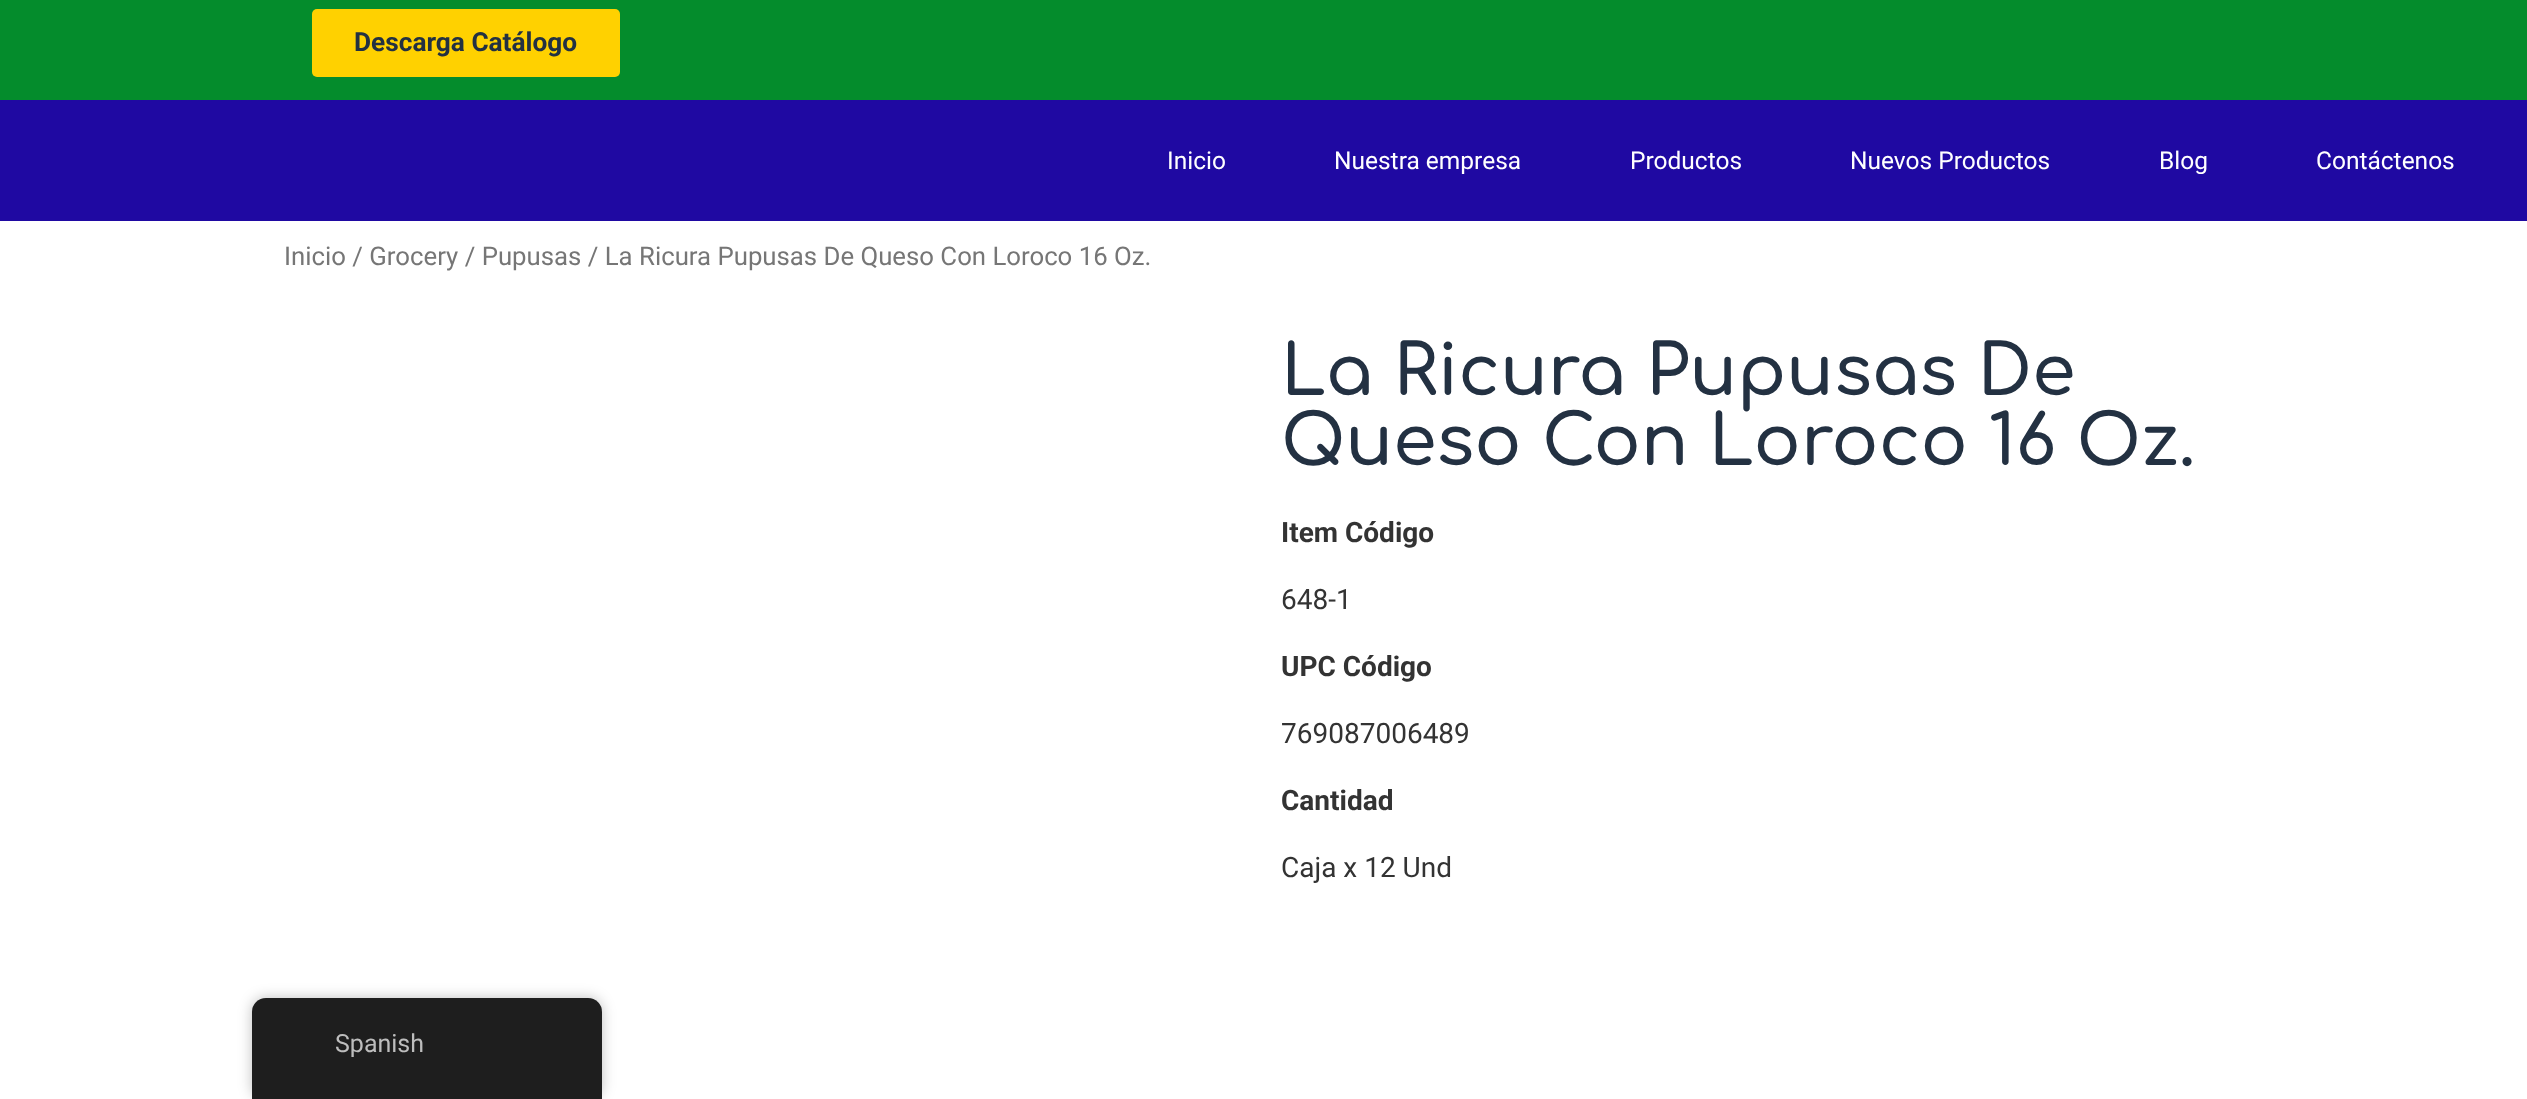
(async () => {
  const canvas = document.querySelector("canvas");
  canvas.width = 2527;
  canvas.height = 1099;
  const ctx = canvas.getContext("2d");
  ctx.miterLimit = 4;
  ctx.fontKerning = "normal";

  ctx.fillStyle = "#ffffff";
  ctx.fillRect(0, 0, 2527, 1099);
  ctx.fillStyle = "#048c2c";
  ctx.fillRect(0, 0, 2527, 100);
  ctx.fillStyle = "#ffd100";
  ctx.beginPath();
  ctx.roundRect(312, 9, 308, 68, 5);
  ctx.fill();
  ctx.fillStyle = "#1f09a2";
  ctx.fillRect(0, 100, 2527, 121);
  ctx.fillStyle = "rgba(0, 0, 0, 0.25)";
  ctx.filter = "blur(7px)";
  ctx.beginPath();
  ctx.roundRect(252, 998, 350, 101, 14);
  ctx.fill();
  ctx.filter = "none";
  ctx.fillStyle = "#1e1e1e";
  ctx.beginPath();
  ctx.roundRect(252, 998, 350, 101, [14, 14, 0, 0]);
  ctx.fill();
  ctx.font = "bold 26.25px Roboto";
  ctx.fillStyle = "#233142";
  ctx.fillText("Descarga Catálogo", 354, 51);
  ctx.font = "24.5px Roboto";
  ctx.fillStyle = "#ffffff";
  for (const [text, x, y] of [
    ["Inicio", 1167, 169],
    ["Nuestra empresa", 1334, 169],
    ["Productos", 1630, 169],
    ["Nuevos Productos", 1850, 169],
    ["Blog", 2159, 169],
    ["Contáctenos", 2316, 169],
  ]) {
    ctx.fillText(text, x, y);
  }
  ctx.font = "25.75px Roboto";
  ctx.fillStyle = "#767676";
  ctx.fillText("Inicio / Grocery / Pupusas / La Ricura Pupusas De Queso Con Loroco 16 Oz.", 284, 265);
  ctx.font = "600 70px Comfortaa";
  ctx.fillStyle = "#233142";
  ctx.fillText("La Ricura Pupusas De", 1281, 395);
  ctx.fillText("Queso Con Loroco 16 Oz.", 1281, 465);
  ctx.font = "bold 28px Roboto";
  ctx.fillStyle = "#333333";
  ctx.fillText("Item Código", 1281, 542);
  ctx.font = "28px Roboto";
  ctx.fillText("648-1", 1281, 609);
  ctx.font = "bold 28px Roboto";
  ctx.fillText("UPC Código", 1281, 676);
  ctx.font = "28px Roboto";
  ctx.fillText("769087006489", 1281, 743);
  ctx.font = "bold 28px Roboto";
  ctx.fillText("Cantidad", 1281, 810);
  ctx.font = "28px Roboto";
  ctx.fillText("Caja x 12 Und", 1281, 877);
  ctx.font = "25px Roboto";
  ctx.fillStyle = "#bdbdbd";
  ctx.fillText("Spanish", 335, 1052);
})();
